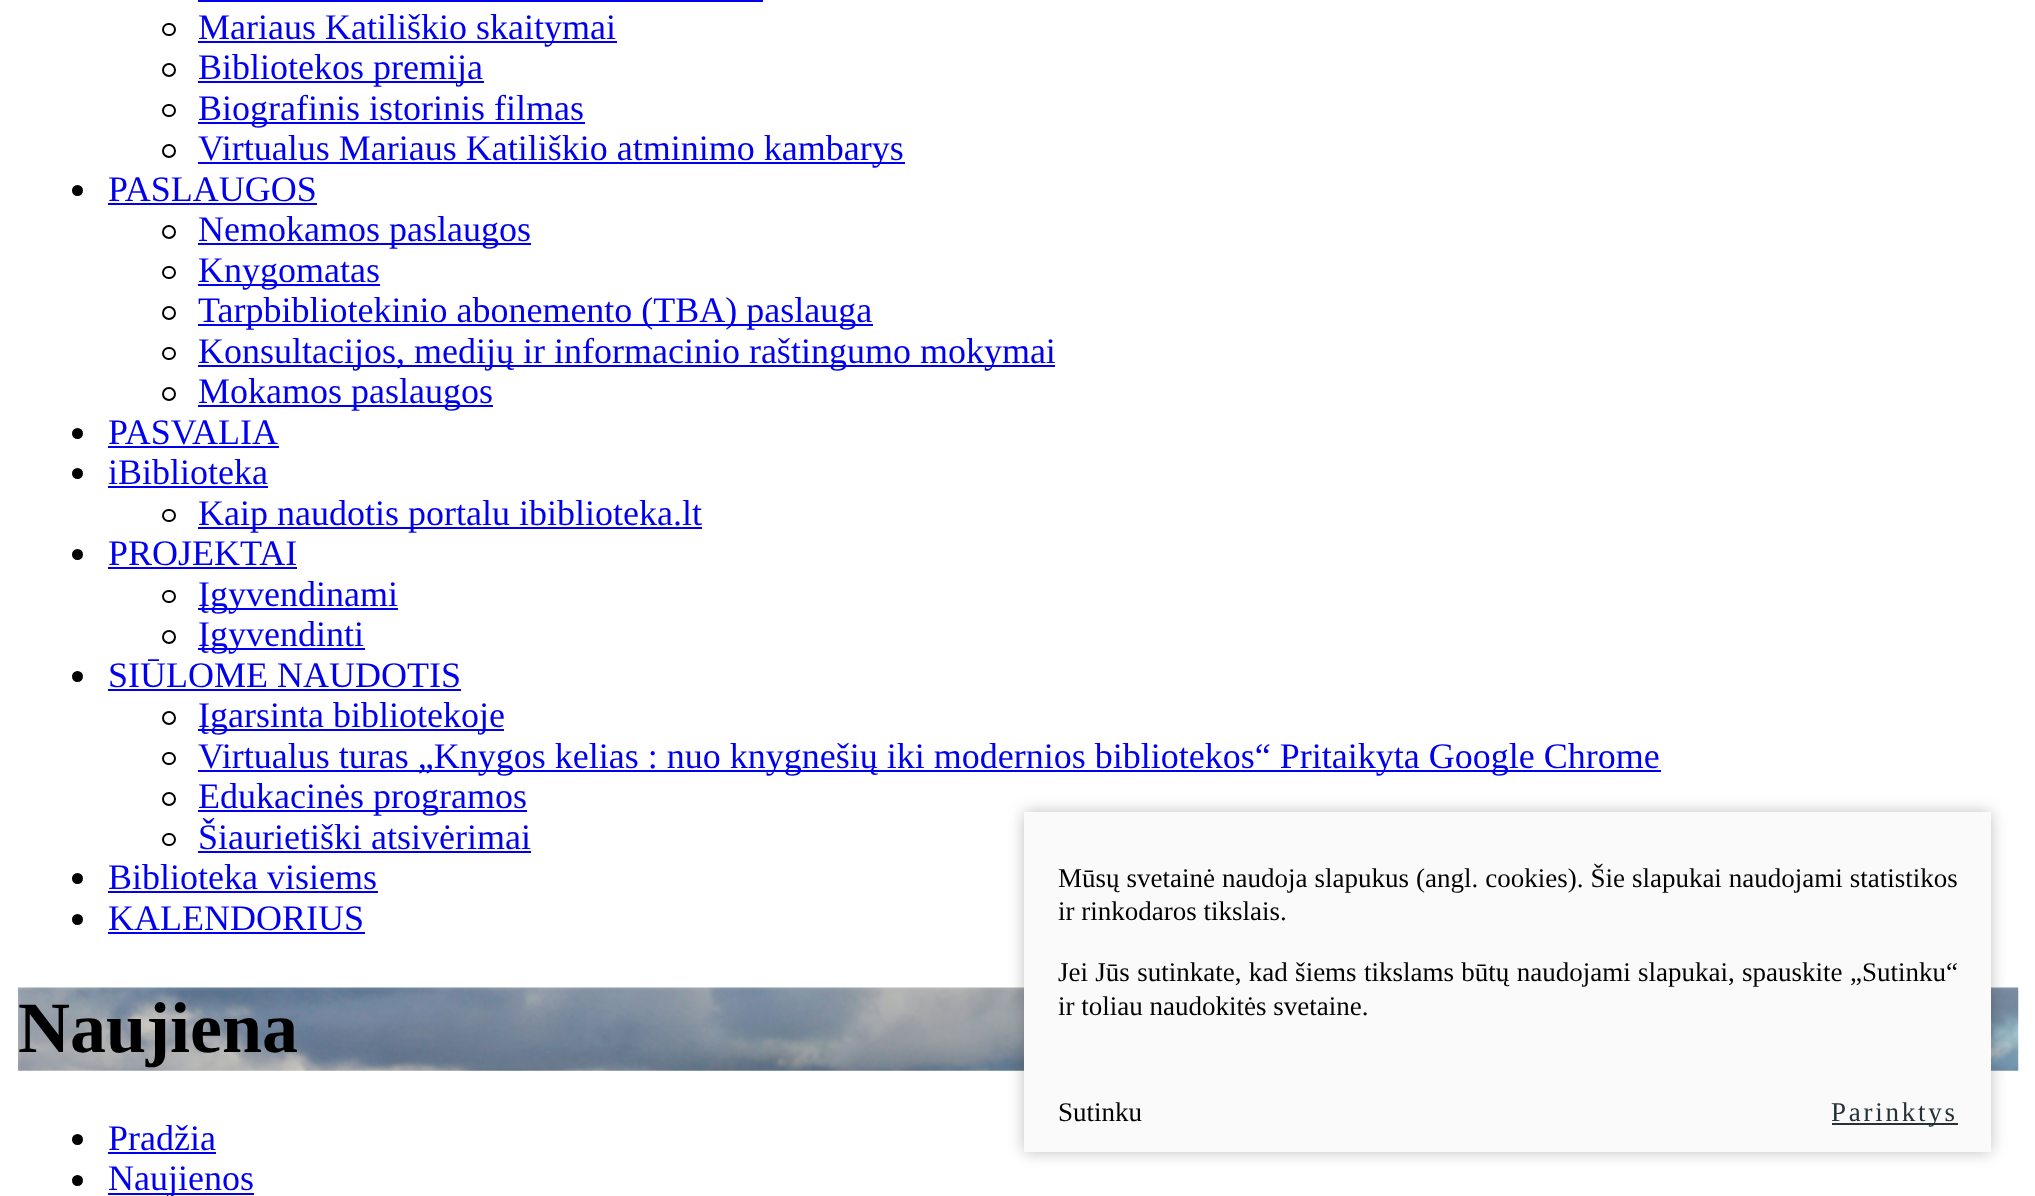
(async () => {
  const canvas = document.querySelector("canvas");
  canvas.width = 2035;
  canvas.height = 1196;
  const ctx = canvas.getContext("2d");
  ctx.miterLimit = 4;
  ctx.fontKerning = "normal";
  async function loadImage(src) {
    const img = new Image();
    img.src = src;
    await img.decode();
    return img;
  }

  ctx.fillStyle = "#ffffff";
  ctx.fillRect(0, 0, 2035, 1196);
  ctx.fillStyle = "#0000ee";
  ctx.fillRect(198, 0, 565, 2);
  ctx.beginPath();
  ctx.roundRect(163, 24, 12, 11, 5.5);
  ctx.strokeStyle = "#000000";
  ctx.lineWidth = 2;
  ctx.stroke();
  ctx.fillRect(198, 41, 419, 2);
  ctx.beginPath();
  ctx.arc(169, 70, 6, 0, Math.PI * 2);
  ctx.stroke();
  ctx.fillRect(198, 81, 286, 2);
  ctx.beginPath();
  ctx.roundRect(163, 105, 12, 11, 5.5);
  ctx.stroke();
  ctx.fillRect(198, 122, 387, 2);
  ctx.beginPath();
  ctx.arc(169, 151, 6, 0, Math.PI * 2);
  ctx.stroke();
  ctx.fillRect(198, 162, 707, 2);
  ctx.fillStyle = "#000000";
  ctx.beginPath();
  ctx.arc(77.5, 190.5, 5.5, 0, Math.PI * 2);
  ctx.fill();
  ctx.fillStyle = "#0000ee";
  ctx.fillRect(108, 203, 209, 2);
  ctx.beginPath();
  ctx.arc(169, 232, 6, 0, Math.PI * 2);
  ctx.stroke();
  ctx.fillRect(198, 243, 333, 2);
  ctx.beginPath();
  ctx.roundRect(163, 267, 12, 11, 5.5);
  ctx.stroke();
  ctx.fillRect(198, 284, 182, 2);
  ctx.beginPath();
  ctx.arc(169, 313, 6, 0, Math.PI * 2);
  ctx.stroke();
  ctx.fillRect(198, 324, 675, 2);
  ctx.beginPath();
  ctx.roundRect(163, 348, 12, 11, 5.5);
  ctx.stroke();
  ctx.fillRect(198, 365, 857, 2);
  ctx.beginPath();
  ctx.arc(169, 394, 6, 0, Math.PI * 2);
  ctx.stroke();
  ctx.fillRect(198, 405, 295, 2);
  ctx.fillStyle = "#000000";
  ctx.beginPath();
  ctx.arc(77.5, 433.5, 5.5, 0, Math.PI * 2);
  ctx.fill();
  ctx.fillStyle = "#0000ee";
  ctx.fillRect(108, 446, 171, 2);
  ctx.fillStyle = "#000000";
  ctx.beginPath();
  ctx.arc(77.5, 473.5, 5.5, 0, Math.PI * 2);
  ctx.fill();
  ctx.fillStyle = "#0000ee";
  ctx.fillRect(108, 486, 160, 2);
  ctx.beginPath();
  ctx.roundRect(163, 510, 12, 11, 5.5);
  ctx.stroke();
  ctx.fillRect(198, 527, 504, 2);
  ctx.fillStyle = "#000000";
  ctx.beginPath();
  ctx.arc(77.5, 554.5, 5.5, 0, Math.PI * 2);
  ctx.fill();
  ctx.fillStyle = "#0000ee";
  ctx.fillRect(108, 567, 189, 2);
  ctx.beginPath();
  ctx.roundRect(163, 591, 12, 11, 5.5);
  ctx.stroke();
  ctx.fillRect(198, 608, 200, 2);
  ctx.beginPath();
  ctx.arc(169, 637, 6, 0, Math.PI * 2);
  ctx.stroke();
  ctx.fillRect(198, 648, 167, 2);
  ctx.fillStyle = "#000000";
  ctx.beginPath();
  ctx.arc(77.5, 676.5, 5.5, 0, Math.PI * 2);
  ctx.fill();
  ctx.fillStyle = "#0000ee";
  ctx.fillRect(108, 689, 353, 2);
  ctx.beginPath();
  ctx.arc(169, 718, 6, 0, Math.PI * 2);
  ctx.stroke();
  ctx.fillRect(198, 729, 306, 2);
  ctx.beginPath();
  ctx.roundRect(163, 753, 12, 11, 5.5);
  ctx.stroke();
  ctx.fillRect(198, 770, 1463, 2);
  ctx.beginPath();
  ctx.arc(169, 799, 6, 0, Math.PI * 2);
  ctx.stroke();
  ctx.fillRect(198, 810, 329, 2);
  ctx.beginPath();
  ctx.roundRect(163, 834, 12, 11, 5.5);
  ctx.stroke();
  ctx.fillRect(198, 851, 333, 2);
  ctx.fillStyle = "#000000";
  ctx.beginPath();
  ctx.arc(77.5, 878.5, 5.5, 0, Math.PI * 2);
  ctx.fill();
  ctx.fillStyle = "#0000ee";
  ctx.fillRect(108, 891, 270, 2);
  ctx.fillStyle = "#000000";
  ctx.beginPath();
  ctx.arc(77.5, 919.5, 5.5, 0, Math.PI * 2);
  ctx.fill();
  ctx.fillStyle = "#0000ee";
  ctx.fillRect(108, 932, 257, 2);
  ctx.drawImage(await loadImage("img/1.png"), 18, 987, 2001, 84);
  ctx.fillStyle = "#000000";
  ctx.beginPath();
  ctx.arc(77.5, 1139.5, 5.5, 0, Math.PI * 2);
  ctx.fill();
  ctx.fillStyle = "#0000ee";
  ctx.fillRect(108, 1152, 108, 2);
  ctx.fillStyle = "#000000";
  ctx.beginPath();
  ctx.arc(77.5, 1180.5, 5.5, 0, Math.PI * 2);
  ctx.fill();
  ctx.fillStyle = "#0000ee";
  ctx.fillRect(108, 1193, 146, 2);
  ctx.fillStyle = "rgba(0, 0, 0, 0.25)";
  ctx.filter = "blur(8px)";
  ctx.beginPath();
  ctx.rect(1024, 812, 967, 340);
  ctx.fill();
  ctx.filter = "none";
  ctx.fillStyle = "#fafafa";
  ctx.fillRect(1024, 812, 967, 340);
  ctx.fillStyle = "#263238";
  ctx.fillRect(1832, 1123, 126, 2);
  ctx.font = "36px Liberation Serif";
  ctx.fillStyle = "#0000ee";
  for (const [text, x, y] of [
    ["Mariaus Katiliškio skaitymai", 198, 39],
    ["Bibliotekos premija", 198, 79],
    ["Biografinis istorinis filmas", 198, 120],
    ["Virtualus Mariaus Katiliškio atminimo kambarys", 198, 160],
    ["PASLAUGOS", 108, 201],
    ["Nemokamos paslaugos", 198, 241],
    ["Knygomatas", 198, 282],
    ["Tarpbibliotekinio abonemento (TBA) paslauga", 198, 322],
    ["Konsultacijos, medijų ir informacinio raštingumo mokymai", 198, 363],
    ["Mokamos paslaugos", 198, 403],
    ["PASVALIA", 108, 444],
    ["iBiblioteka", 108, 484],
    ["Kaip naudotis portalu ibiblioteka.lt", 198, 525],
    ["PROJEKTAI", 108, 565],
    ["Įgyvendinami", 198, 606],
    ["Įgyvendinti", 198, 646],
    ["SIŪLOME NAUDOTIS", 108, 687],
    ["Įgarsinta bibliotekoje", 198, 727],
    ["Virtualus turas „Knygos kelias : nuo knygnešių iki modernios bibliotekos“ Pritaikyta Google Chrome", 198, 768],
    ["Edukacinės programos", 198, 808],
    ["Šiaurietiški atsivėrimai", 198, 849],
    ["Biblioteka visiems", 108, 889],
    ["KALENDORIUS", 108, 930],
  ]) {
    ctx.fillText(text, x, y);
  }
  ctx.font = "bold 72px Liberation Serif";
  ctx.fillStyle = "#000000";
  ctx.fillText("Naujiena", 18, 1052);
  ctx.font = "36px Liberation Serif";
  ctx.fillStyle = "#0000ee";
  ctx.fillText("Pradžia", 108, 1150);
  ctx.fillText("Naujienos", 108, 1190);
  ctx.wordSpacing = "0.25px";
  ctx.font = "27px Liberation Serif";
  ctx.fillStyle = "#000000";
  ctx.fillText("Mūsų svetainė naudoja slapukus (angl. cookies). Šie slapukai naudojami statistikos", 1058, 887);
  ctx.wordSpacing = "0px";
  ctx.fillText("ir rinkodaros tikslais.", 1058, 920);
  ctx.wordSpacing = "0.6px";
  ctx.fillText("Jei Jūs sutinkate, kad šiems tikslams būtų naudojami slapukai, spauskite „Sutinku“", 1058, 981);
  ctx.wordSpacing = "0px";
  ctx.fillText("ir toliau naudokitės svetaine.", 1058, 1015);
  ctx.fillText("Sutinku", 1058, 1121);
  ctx.letterSpacing = "2.75px";
  ctx.fillStyle = "#263238";
  ctx.fillText("Parinktys", 1831, 1121);
})();
